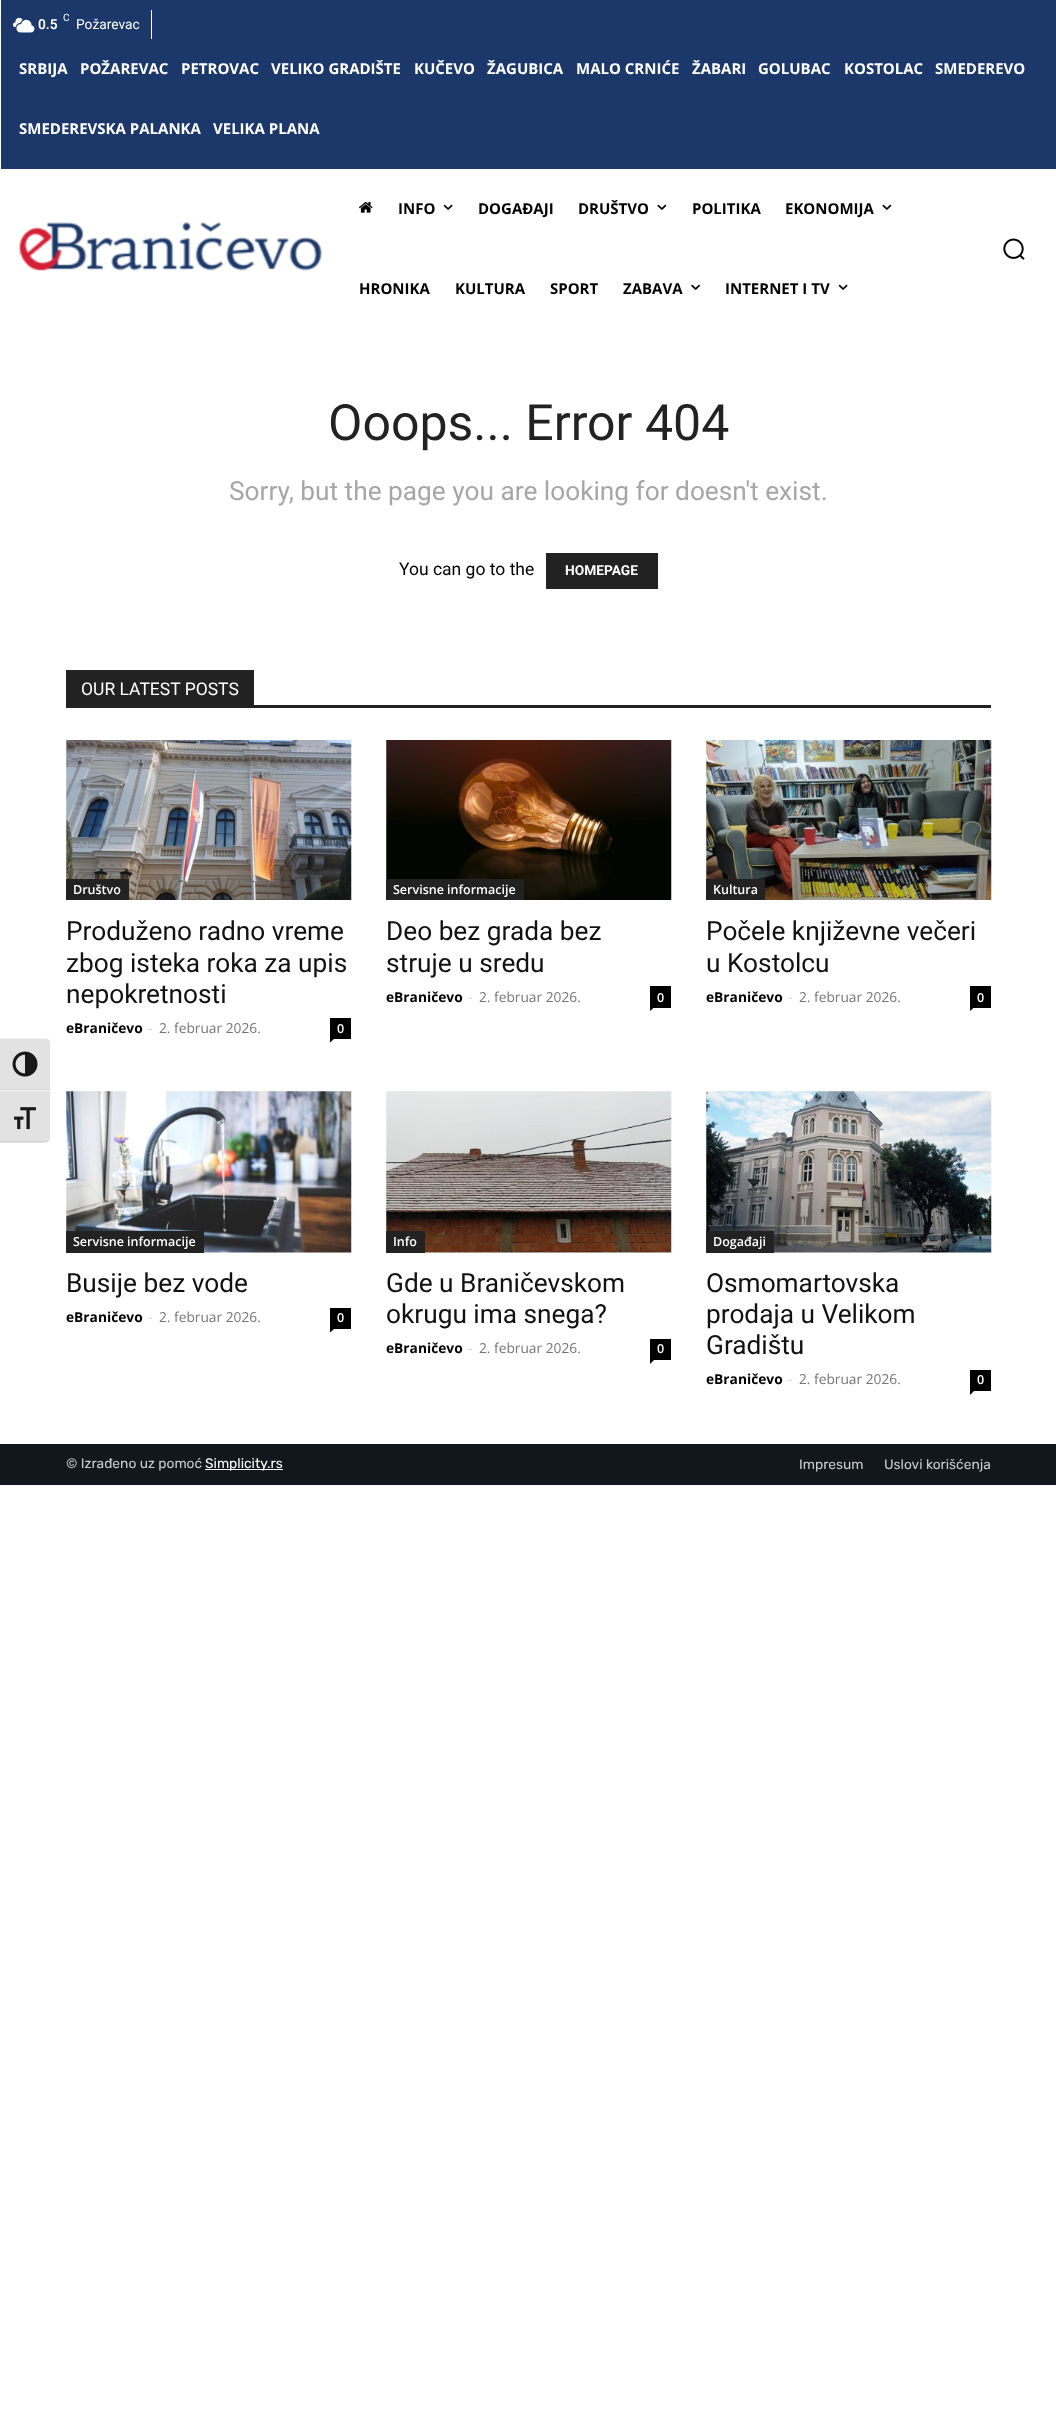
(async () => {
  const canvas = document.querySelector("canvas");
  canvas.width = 1056;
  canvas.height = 2412;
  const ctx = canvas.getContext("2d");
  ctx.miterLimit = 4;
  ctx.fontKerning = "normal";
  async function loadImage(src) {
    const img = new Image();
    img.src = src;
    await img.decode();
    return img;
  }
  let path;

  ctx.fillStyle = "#ffffff";
  ctx.fillRect(0, 0, 1056, 2412);
  ctx.fillStyle = "#1c386a";
  ctx.fillRect(1, 0, 1055, 169);
  ctx.fillStyle = "#ffffff";
  ctx.fillRect(151, 10, 1, 29);
  ctx.drawImage(await loadImage("img/1.png"), 13, 17, 22, 16);
  ctx.drawImage(await loadImage("img/2.png"), 19, 222, 303, 49);
  ctx.drawImage(await loadImage("img/3.png"), 359, 201, 14, 12);
  ctx.drawImage(await loadImage("img/4.png"), 443, 204, 10, 6);
  ctx.drawImage(await loadImage("img/5.png"), 657, 204, 10, 6);
  ctx.drawImage(await loadImage("img/5.png"), 882, 204, 10, 6);
  ctx.drawImage(await loadImage("img/6.png"), 691, 284, 9, 6);
  ctx.drawImage(await loadImage("img/4.png"), 838, 284, 10, 6);
  ctx.drawImage(await loadImage("img/7.png"), 1003, 238, 22, 22);
  for (const [x, y, w, h, color] of [
    [546, 553, 112, 36, "#222222"],
    [66, 705, 925, 3, "#222222"],
    [66, 670, 188, 35, "#222222"],
  ]) {
    ctx.fillStyle = color;
    ctx.fillRect(x, y, w, h);
  }
  ctx.drawImage(await loadImage("img/8.png"), 66, 740, 286, 160);
  ctx.fillRect(66, 879, 63, 21);
  ctx.fillStyle = "#000000";
  ctx.fillRect(330, 1018, 21, 21);
  path = new Path2D("M330 1039H334L330 1042.5Z");
  ctx.fill(path);
  ctx.drawImage(await loadImage("img/9.png"), 386, 740, 286, 160);
  ctx.fillStyle = "#222222";
  ctx.fillRect(386, 879, 138, 21);
  ctx.fillStyle = "#000000";
  ctx.fillRect(650, 986, 21, 22);
  path = new Path2D("M650 1007.5H654L650 1011Z");
  ctx.fill(path);
  ctx.drawImage(await loadImage("img/10.png"), 706, 740, 286, 160);
  ctx.fillStyle = "#222222";
  ctx.fillRect(706, 879, 59, 21);
  ctx.fillStyle = "#000000";
  ctx.fillRect(970, 986, 21, 22);
  path = new Path2D("M970 1007.5H974L970 1011Z");
  ctx.fill(path);
  ctx.drawImage(await loadImage("img/11.png"), 66, 1091, 286, 162);
  ctx.fillStyle = "#222222";
  ctx.fillRect(66, 1231, 138, 22);
  ctx.fillStyle = "#000000";
  ctx.fillRect(330, 1308, 21, 21);
  path = new Path2D("M330 1329H334L330 1332.5Z");
  ctx.fill(path);
  ctx.drawImage(await loadImage("img/12.png"), 386, 1091, 286, 162);
  ctx.fillStyle = "#222222";
  ctx.fillRect(386, 1231, 39, 22);
  ctx.fillStyle = "#000000";
  ctx.fillRect(650, 1339, 21, 21);
  path = new Path2D("M650 1360H654L650 1364Z");
  ctx.fill(path);
  ctx.drawImage(await loadImage("img/13.png"), 706, 1091, 286, 162);
  ctx.fillStyle = "#222222";
  ctx.fillRect(706, 1231, 68, 22);
  ctx.fillStyle = "#000000";
  ctx.fillRect(970, 1370, 21, 21);
  path = new Path2D("M970 1391H974L970 1395Z");
  ctx.fill(path);
  ctx.fillStyle = "#11171c";
  ctx.fillRect(0, 1444, 1056, 41);
  ctx.fillStyle = "#ffffff";
  ctx.fillRect(205, 1469, 78, 1);
  ctx.fillStyle = "#e2e2e2";
  ctx.beginPath();
  ctx.roundRect(0, 1038, 50, 52, [0, 5, 0, 0]);
  ctx.fill();
  ctx.fillStyle = "#f5f5f5";
  path = new Path2D("M0 1039H45C48 1039 50 1040 50 1042C50 1040 48 1038 45 1038H0Z");
  ctx.fill(path);
  ctx.fillStyle = "#d2d2d2";
  ctx.fillRect(0, 1089, 50, 1);
  ctx.drawImage(await loadImage("img/14.png"), 12, 1051, 26, 26);
  ctx.fillStyle = "#e2e2e2";
  ctx.beginPath();
  ctx.roundRect(0, 1090, 50, 53, [0, 0, 5, 0]);
  ctx.fill();
  ctx.fillStyle = "#f5f5f5";
  ctx.fillRect(0, 1090, 50, 1);
  ctx.fillStyle = "#d2d2d2";
  path = new Path2D("M0 1141V1142H45C48 1142 50 1140 50 1138C50 1140 48 1141 45 1141Z");
  ctx.fill(path);
  ctx.drawImage(await loadImage("img/15.png"), 14, 1107, 22, 23);
  ctx.font = "10px Roboto";
  ctx.fillStyle = "#ffffff";
  ctx.fillText("C", 63, 21);
  ctx.font = "600 13.75px Roboto";
  ctx.fillText("0.5", 38, 29);
  ctx.font = "13.75px Roboto";
  ctx.fillText("Požarevac", 76, 29);
  ctx.font = "bold 15px Open Sans";
  for (const [text, x, y] of [
    ["SRBIJA", 19, 74],
    ["POŽAREVAC", 80, 74],
    ["PETROVAC", 181, 74],
    ["VELIKO GRADIŠTE", 271, 74],
    ["KUČEVO", 414, 74],
    ["ŽAGUBICA", 487, 74],
    ["MALO CRNIĆE", 576, 74],
    ["ŽABARI", 692, 74],
    ["GOLUBAC", 758, 74],
    ["KOSTOLAC", 844, 74],
    ["SMEDEREVO", 935, 74],
    ["SMEDEREVSKA PALANKA", 19, 134],
    ["VELIKA PLANA", 213, 134],
  ]) {
    ctx.fillText(text, x, y);
  }
  ctx.fillStyle = "#000000";
  for (const [text, x, y] of [
    ["INFO", 398, 214],
    ["DOGAĐAJI", 478, 214],
    ["DRUŠTVO", 578, 214],
    ["POLITIKA", 692, 214],
    ["EKONOMIJA", 785, 214],
    ["HRONIKA", 359, 294],
    ["KULTURA", 455, 294],
    ["SPORT", 550, 294],
    ["ZABAVA", 623, 294],
    ["INTERNET I TV", 725, 294],
  ]) {
    ctx.fillText(text, x, y);
  }
  ctx.font = "50px Roboto";
  ctx.fillStyle = "#222222";
  ctx.fillText("Ooops... Error 404", 328, 440);
  ctx.font = "26.25px Roboto";
  ctx.fillStyle = "#a6a6a6";
  ctx.fillText("Sorry, but the page you are looking for doesn't exist.", 229, 500);
  ctx.font = "17.5px Roboto";
  ctx.fillStyle = "#000000";
  ctx.fillText("You can go to the", 399, 575);
  ctx.font = "bold 13.75px Roboto";
  ctx.fillStyle = "#ffffff";
  ctx.fillText("HOMEPAGE", 565, 575);
  ctx.font = "17.5px Roboto";
  ctx.fillText("OUR LATEST POSTS", 81, 695);
  ctx.font = "600 12.5px Open Sans";
  ctx.fillText("Društvo", 73, 894);
  ctx.font = "26.25px Roboto";
  ctx.fillStyle = "#111111";
  for (const [text, x, y] of [
    ["Produženo radno vreme", 66, 940],
    ["zbog isteka roka za upis", 66, 972],
    ["nepokretnosti", 66, 1003],
  ]) {
    ctx.fillText(text, x, y);
  }
  ctx.font = "bold 13.75px Open Sans";
  ctx.fillStyle = "#000000";
  ctx.fillText("eBraničevo", 66, 1033);
  ctx.font = "13.75px Open Sans";
  ctx.fillStyle = "#cccccc";
  ctx.fillText("-", 148, 1033);
  ctx.fillStyle = "#767676";
  ctx.fillText("2. februar 2026.", 159, 1033);
  ctx.font = "600 12.5px Open Sans";
  ctx.fillStyle = "#ffffff";
  ctx.fillText("0", 337, 1033);
  ctx.fillText("Servisne informacije", 393, 894);
  ctx.font = "26.25px Roboto";
  ctx.fillStyle = "#111111";
  ctx.fillText("Deo bez grada bez", 386, 940);
  ctx.fillText("struje u sredu", 386, 972);
  ctx.font = "bold 13.75px Open Sans";
  ctx.fillStyle = "#000000";
  ctx.fillText("eBraničevo", 386, 1002);
  ctx.font = "13.75px Open Sans";
  ctx.fillStyle = "#cccccc";
  ctx.fillText("-", 468, 1002);
  ctx.fillStyle = "#767676";
  ctx.fillText("2. februar 2026.", 479, 1002);
  ctx.font = "600 12.5px Open Sans";
  ctx.fillStyle = "#ffffff";
  ctx.fillText("0", 657, 1002);
  ctx.fillText("Kultura", 713, 894);
  ctx.font = "26.25px Roboto";
  ctx.fillStyle = "#111111";
  ctx.fillText("Počele književne večeri", 706, 940);
  ctx.fillText("u Kostolcu", 706, 972);
  ctx.font = "bold 13.75px Open Sans";
  ctx.fillStyle = "#000000";
  ctx.fillText("eBraničevo", 706, 1002);
  ctx.font = "13.75px Open Sans";
  ctx.fillStyle = "#cccccc";
  ctx.fillText("-", 788, 1002);
  ctx.fillStyle = "#767676";
  ctx.fillText("2. februar 2026.", 799, 1002);
  ctx.font = "600 12.5px Open Sans";
  ctx.fillStyle = "#ffffff";
  ctx.fillText("0", 977, 1002);
  ctx.fillText("Servisne informacije", 73, 1246);
  ctx.font = "26.25px Roboto";
  ctx.fillStyle = "#111111";
  ctx.fillText("Busije bez vode", 66, 1292);
  ctx.font = "bold 13.75px Open Sans";
  ctx.fillStyle = "#000000";
  ctx.fillText("eBraničevo", 66, 1322);
  ctx.font = "13.75px Open Sans";
  ctx.fillStyle = "#cccccc";
  ctx.fillText("-", 148, 1322);
  ctx.fillStyle = "#767676";
  ctx.fillText("2. februar 2026.", 159, 1322);
  ctx.font = "600 12.5px Open Sans";
  ctx.fillStyle = "#ffffff";
  ctx.fillText("0", 337, 1322);
  ctx.fillText("Info", 393, 1246);
  ctx.font = "26.25px Roboto";
  ctx.fillStyle = "#111111";
  ctx.fillText("Gde u Braničevskom", 386, 1292);
  ctx.fillText("okrugu ima snega?", 386, 1323);
  ctx.font = "bold 13.75px Open Sans";
  ctx.fillStyle = "#000000";
  ctx.fillText("eBraničevo", 386, 1353);
  ctx.font = "13.75px Open Sans";
  ctx.fillStyle = "#cccccc";
  ctx.fillText("-", 468, 1353);
  ctx.fillStyle = "#767676";
  ctx.fillText("2. februar 2026.", 479, 1353);
  ctx.font = "600 12.5px Open Sans";
  ctx.fillStyle = "#ffffff";
  ctx.fillText("0", 657, 1353);
  ctx.fillText("Događaji", 713, 1246);
  ctx.font = "26.25px Roboto";
  ctx.fillStyle = "#111111";
  for (const [text, x, y] of [
    ["Osmomartovska", 706, 1292],
    ["prodaja u Velikom", 706, 1323],
    ["Gradištu", 706, 1354],
  ]) {
    ctx.fillText(text, x, y);
  }
  ctx.font = "bold 13.75px Open Sans";
  ctx.fillStyle = "#000000";
  ctx.fillText("eBraničevo", 706, 1384);
  ctx.font = "13.75px Open Sans";
  ctx.fillStyle = "#cccccc";
  ctx.fillText("-", 788, 1384);
  ctx.fillStyle = "#767676";
  ctx.fillText("2. februar 2026.", 799, 1384);
  ctx.font = "600 12.5px Open Sans";
  ctx.fillStyle = "#ffffff";
  ctx.fillText("0", 977, 1384);
  ctx.font = "300 13.75px Rubik";
  ctx.fillStyle = "#cccccc";
  ctx.fillText("© Izrađeno uz pomoć", 66, 1468);
  ctx.fillStyle = "#ffffff";
  ctx.fillText("Simplicity.rs", 205, 1468);
  ctx.fillStyle = "#cccccc";
  ctx.fillText("Impresum", 799, 1469);
  ctx.fillText("Uslovi korišćenja", 884, 1469);
})();
